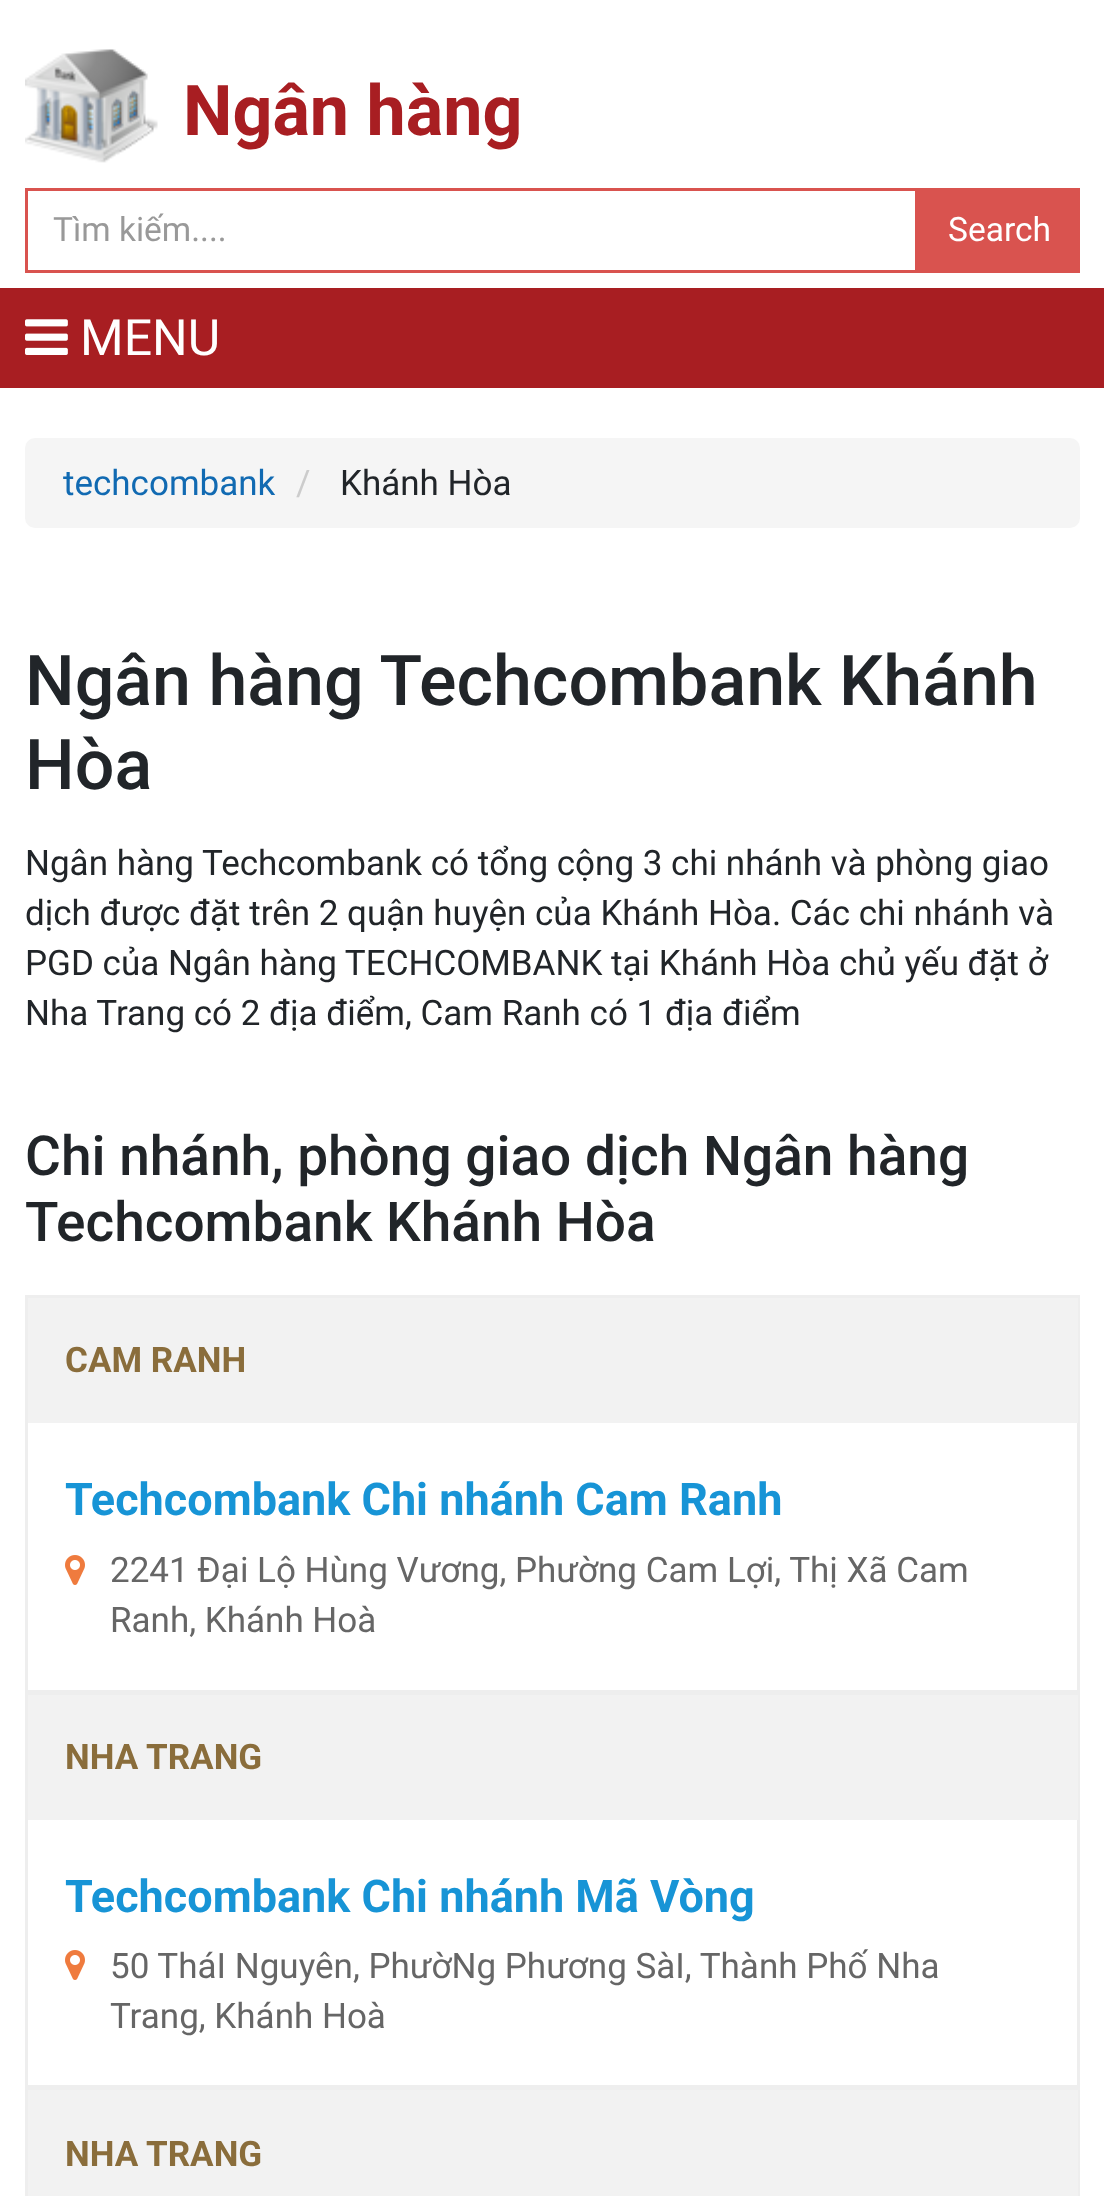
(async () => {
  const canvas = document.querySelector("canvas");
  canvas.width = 1104;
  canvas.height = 2196;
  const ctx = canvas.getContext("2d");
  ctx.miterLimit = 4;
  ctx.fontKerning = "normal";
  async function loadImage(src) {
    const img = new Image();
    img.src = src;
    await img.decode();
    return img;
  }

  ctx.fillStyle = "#ffffff";
  ctx.fillRect(0, 0, 1104, 2196);
  ctx.drawImage(await loadImage("img/1.png"), 25, 49, 133, 114);
  ctx.strokeStyle = "#d9534f";
  ctx.lineWidth = 3;
  ctx.strokeRect(26.5, 189.5, 890, 82);
  ctx.fillStyle = "#d9534f";
  ctx.fillRect(918, 188, 162, 85);
  ctx.fillStyle = "#a81e22";
  ctx.fillRect(0, 288, 1104, 100);
  ctx.drawImage(await loadImage("img/2.png"), 25, 319, 43, 36);
  ctx.fillStyle = "#f5f5f5";
  ctx.beginPath();
  ctx.roundRect(25, 438, 1055, 90, 10);
  ctx.fill();
  ctx.strokeStyle = "#eeeeee";
  ctx.strokeRect(26.5, 1296.5, 1052, 395);
  ctx.fillStyle = "#f2f2f2";
  ctx.fillRect(28, 1298, 1050, 125);
  ctx.drawImage(await loadImage("img/3.png"), 65, 1555, 20, 30);
  ctx.strokeRect(26.5, 1694.5, 1052, 392);
  ctx.fillRect(28, 1695, 1050, 125);
  ctx.drawImage(await loadImage("img/3.png"), 65, 1950, 20, 30);
  ctx.strokeRect(26.5, 2089.5, 1052, 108);
  ctx.fillRect(28, 2090, 1050, 106);
  ctx.font = "bold 70px Roboto";
  ctx.fillStyle = "#a81e22";
  ctx.fillText("Ngân hàng", 183, 135);
  ctx.font = "33.5px Roboto";
  ctx.fillStyle = "#999999";
  ctx.fillText("Tìm kiếm....", 53, 241);
  ctx.fillStyle = "#ffffff";
  ctx.fillText("Search", 948, 241);
  ctx.font = "50px Roboto";
  ctx.fillText("MENU", 80, 355);
  ctx.font = "35px Roboto";
  ctx.fillStyle = "#116ab2";
  ctx.fillText("techcombank", 63, 495);
  ctx.fillStyle = "#cccccc";
  ctx.fillText("/", 296, 495);
  ctx.fillStyle = "#212529";
  ctx.fillText("Khánh Hòa", 340, 495);
  ctx.font = "500 70px Roboto";
  ctx.fillText("Ngân hàng Techcombank Khánh", 25, 705);
  ctx.fillText("Hòa", 25, 789);
  ctx.font = "35px Roboto";
  for (const [text, x, y] of [
    ["Ngân hàng Techcombank có tổng cộng 3 chi nhánh và phòng giao", 25, 875],
    ["dịch được đặt trên 2 quận huyện của Khánh Hòa. Các chi nhánh và", 25, 925],
    ["PGD của Ngân hàng TECHCOMBANK tại Khánh Hòa chủ yếu đặt ở", 25, 975],
    ["Nha Trang có 2 địa điểm, Cam Ranh có 1 địa điểm", 25, 1025],
  ]) {
    ctx.fillText(text, x, y);
  }
  ctx.font = "500 55px Roboto";
  ctx.fillText("Chi nhánh, phòng giao dịch Ngân hàng", 25, 1175);
  ctx.fillText("Techcombank Khánh Hòa", 25, 1241);
  ctx.font = "bold 35px Roboto";
  ctx.fillStyle = "#8a6d3b";
  ctx.fillText("CAM RANH", 65, 1372);
  ctx.font = "bold 45px Roboto";
  ctx.fillStyle = "#1794d6";
  ctx.fillText("Techcombank Chi nhánh Cam Ranh", 65, 1515);
  ctx.font = "35px Roboto";
  ctx.fillStyle = "#666666";
  ctx.fillText("2241 Đại Lộ Hùng Vương, Phường Cam Lợi, Thị Xã Cam", 110, 1582);
  ctx.fillText("Ranh, Khánh Hoà", 110, 1632);
  ctx.font = "bold 35px Roboto";
  ctx.fillStyle = "#8a6d3b";
  ctx.fillText("NHA TRANG", 65, 1769);
  ctx.font = "bold 45px Roboto";
  ctx.fillStyle = "#1794d6";
  ctx.fillText("Techcombank Chi nhánh Mã Vòng", 65, 1912);
  ctx.font = "35px Roboto";
  ctx.fillStyle = "#666666";
  ctx.fillText("50 TháI Nguyên, PhườNg Phương SàI, Thành Phố Nha", 110, 1978);
  ctx.fillText("Trang, Khánh Hoà", 110, 2028);
  ctx.font = "bold 35px Roboto";
  ctx.fillStyle = "#8a6d3b";
  ctx.fillText("NHA TRANG", 65, 2166);
})();
